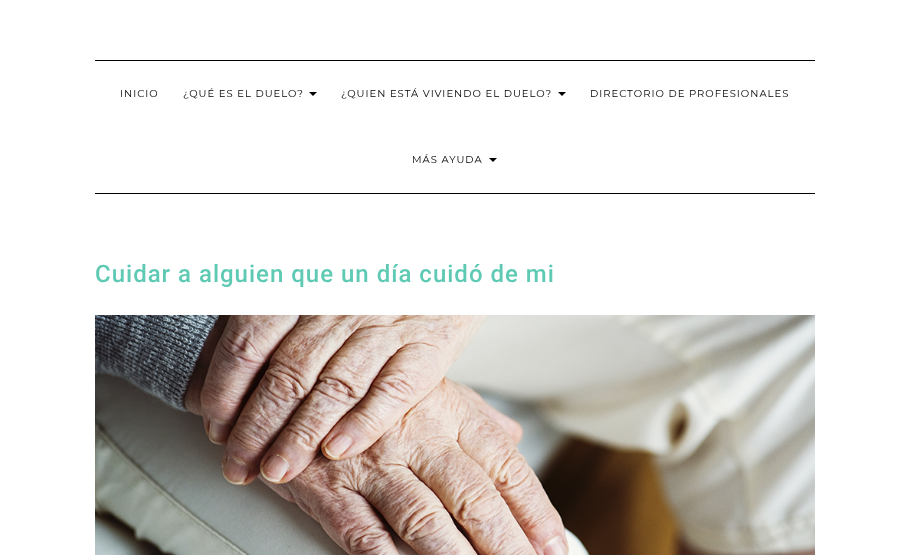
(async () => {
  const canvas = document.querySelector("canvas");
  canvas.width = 909;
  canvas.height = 555;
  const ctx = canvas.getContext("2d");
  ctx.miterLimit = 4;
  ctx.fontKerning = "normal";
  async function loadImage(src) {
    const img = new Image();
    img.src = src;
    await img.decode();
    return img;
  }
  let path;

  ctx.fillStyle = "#ffffff";
  ctx.fillRect(0, 0, 909, 555);
  ctx.fillStyle = "#000000";
  ctx.fillRect(95, 60, 720, 1);
  ctx.fillRect(95, 193, 720, 1);
  path = new Path2D("M309 92H317L313 96Z");
  ctx.fill(path);
  path = new Path2D("M558 92H566L562 96Z");
  ctx.fill(path);
  path = new Path2D("M489 158H497L493 162Z");
  ctx.fill(path);
  ctx.drawImage(await loadImage("img/1.png"), 95, 315, 720, 240);
  ctx.letterSpacing = "1px";
  ctx.font = "10px Montserrat";
  for (const [text, x, y] of [
    ["INICIO", 120, 97],
    ["¿QUÉ ES EL DUELO?", 183, 97],
    ["¿QUIEN ESTÁ VIVIENDO EL DUELO?", 341, 97],
    ["DIRECTORIO DE PROFESIONALES", 590, 97],
    ["MÁS AYUDA", 412, 163],
  ]) {
    ctx.fillText(text, x, y);
  }
  ctx.font = "500 24px Roboto";
  ctx.fillStyle = "#5ecab3";
  ctx.fillText("Cuidar a alguien que un día cuidó de mi", 95, 282);
})();
